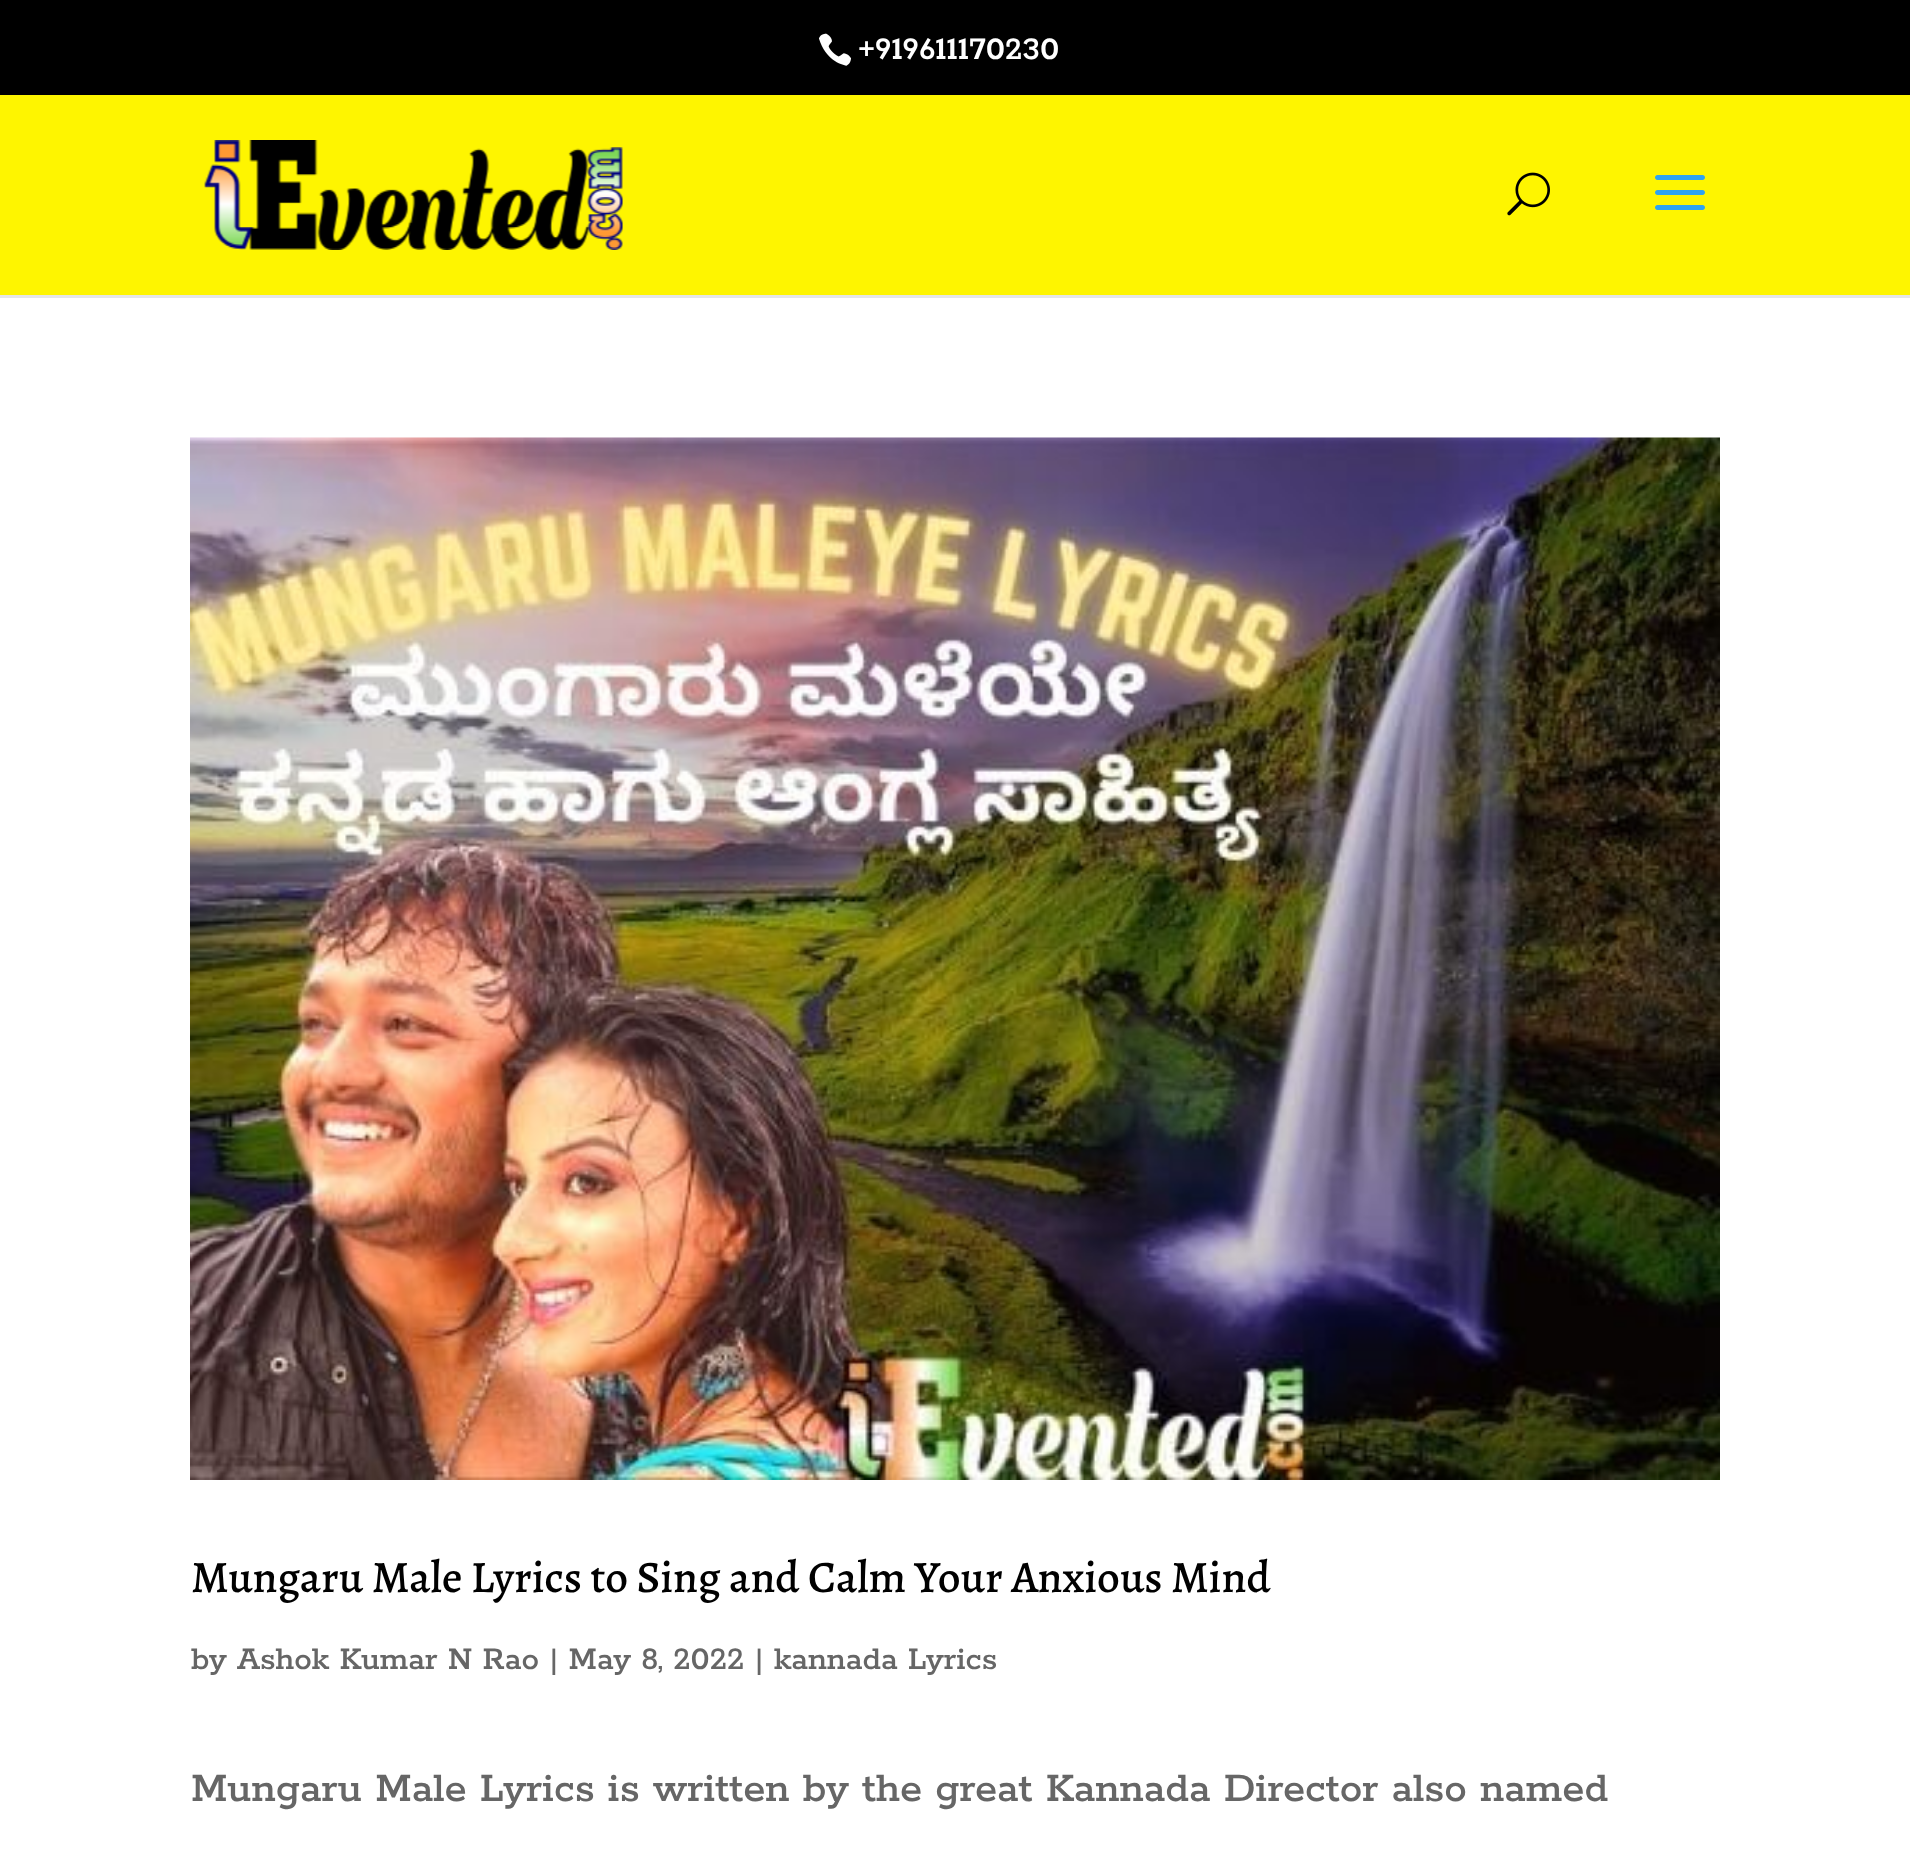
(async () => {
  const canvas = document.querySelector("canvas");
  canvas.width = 1910;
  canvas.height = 1850;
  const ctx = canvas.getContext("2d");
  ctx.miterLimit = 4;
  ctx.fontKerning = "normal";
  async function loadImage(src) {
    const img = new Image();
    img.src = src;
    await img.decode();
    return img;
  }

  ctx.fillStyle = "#ffffff";
  ctx.fillRect(0, 0, 1910, 1850);
  ctx.fillStyle = "#000000";
  ctx.fillRect(0, 0, 1910, 95);
  ctx.drawImage(await loadImage("img/1.png"), 819, 33, 32, 33);
  ctx.fillStyle = "#e6e6e6";
  ctx.fillRect(0, 295, 1910, 3);
  ctx.fillStyle = "#fef500";
  ctx.fillRect(0, 95, 1910, 200);
  ctx.drawImage(await loadImage("img/2.png"), 204, 140, 419, 110);
  ctx.drawImage(await loadImage("img/3.png"), 1507, 172, 43, 44);
  ctx.drawImage(await loadImage("img/4.png"), 1655, 175, 50, 35);
  ctx.drawImage(await loadImage("img/5.png"), 190, 437, 1530, 1043);
  ctx.font = "600 35px 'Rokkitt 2'";
  ctx.fillStyle = "#ffffff";
  ctx.fillText("+919611170230", 858, 59);
  ctx.font = "500 45px Alegreya";
  ctx.fillStyle = "#000000";
  ctx.fillText("Mungaru Male Lyrics to Sing and Calm Your Anxious Mind", 191, 1592);
  ctx.font = "600 35px Rokkitt";
  ctx.fillStyle = "#666666";
  ctx.fillText("by Ashok Kumar N Rao | May 8, 2022 | kannada Lyrics", 191, 1669);
  ctx.font = "600 45px Rokkitt";
  ctx.fillText("Mungaru Male Lyrics is written by the great Kannada Director also named", 191, 1801);
})();
